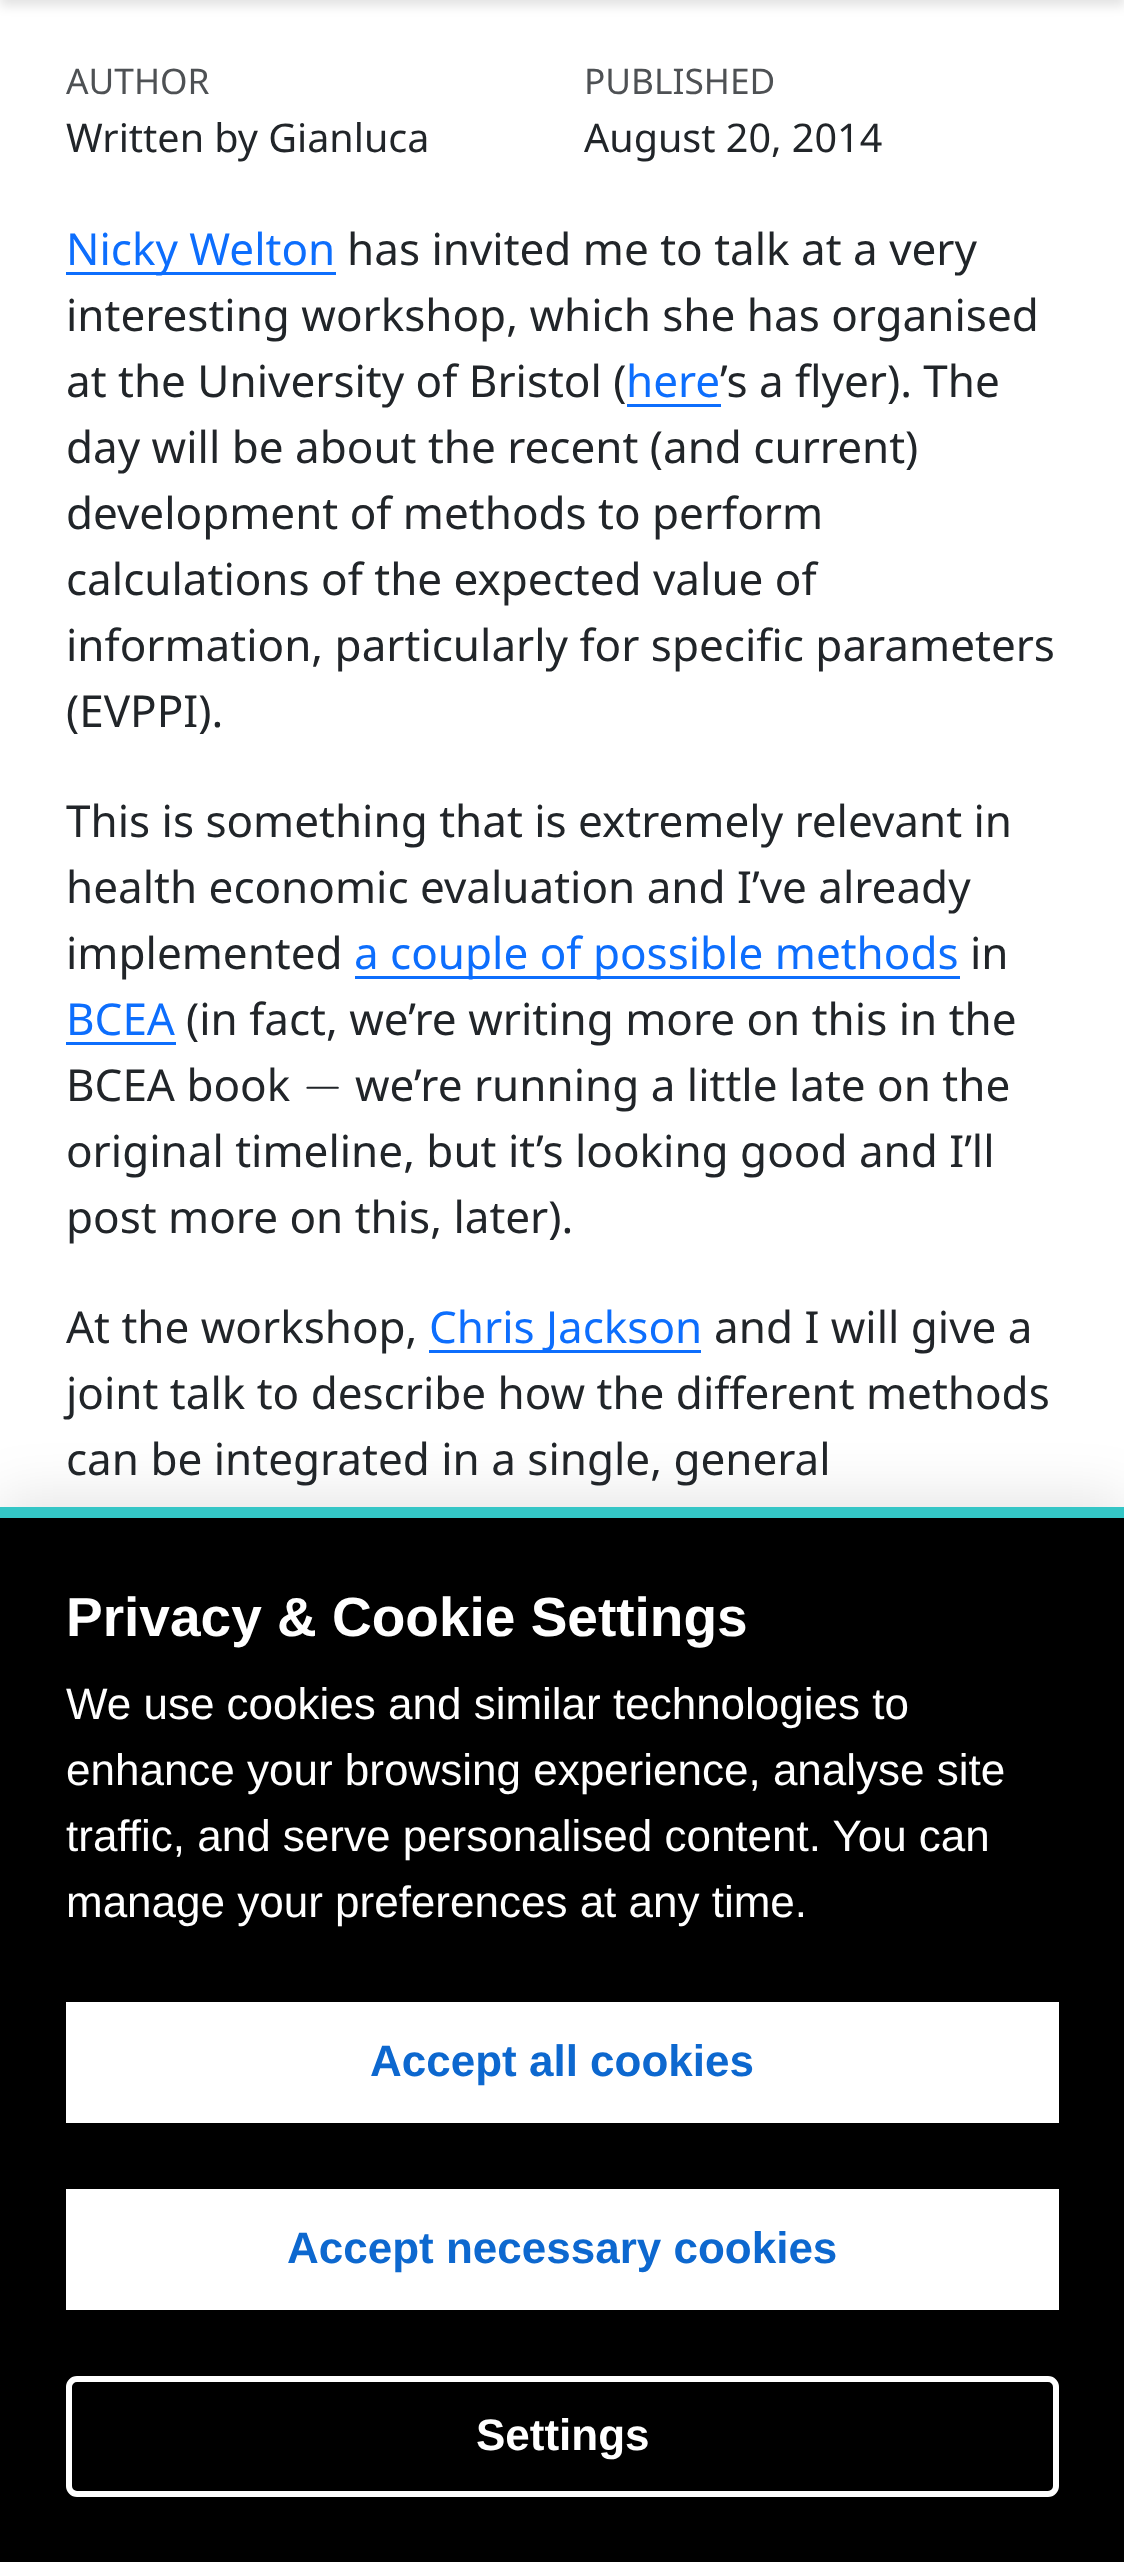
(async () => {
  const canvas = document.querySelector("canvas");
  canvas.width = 1124;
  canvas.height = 2562;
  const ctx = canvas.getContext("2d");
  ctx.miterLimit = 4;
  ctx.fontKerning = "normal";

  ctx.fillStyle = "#ffffff";
  ctx.fillRect(0, 0, 1124, 2562);
  ctx.fillStyle = "rgba(0, 0, 0, 0.11)";
  ctx.filter = "blur(5.5px)";
  ctx.beginPath();
  ctx.rect(0, -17, 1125, 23);
  ctx.fill();
  ctx.filter = "none";
  for (const [x, y, w, h, color] of [
    [66, 272, 270, 3, "#0d6efd"],
    [627, 404, 94, 3, "#0d6efd"],
    [355, 976, 605, 3, "#0d6efd"],
    [66, 1042, 110, 3, "#0d6efd"],
    [429, 1350, 272, 3, "#0d6efd"],
  ]) {
    ctx.fillStyle = color;
    ctx.fillRect(x, y, w, h);
  }
  ctx.fillStyle = "rgba(0, 0, 0, 0.1)";
  ctx.filter = "blur(27.5px)";
  ctx.beginPath();
  ctx.rect(0, 1496, 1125, 1056);
  ctx.fill();
  ctx.filter = "none";
  for (const [x, y, w, h, color] of [
    [0, 1518, 1124, 1044, "#000000"],
    [0, 1507, 1124, 11, "#34c6c6"],
    [66, 2002, 993, 121, "#ffffff"],
    [66, 2189, 993, 121, "#ffffff"],
  ]) {
    ctx.fillStyle = color;
    ctx.fillRect(x, y, w, h);
  }
  ctx.beginPath();
  ctx.roundRect(69, 2379, 987, 115, 8);
  ctx.strokeStyle = "#ffffff";
  ctx.lineWidth = 6;
  ctx.stroke();
  ctx.font = "35.25px Noto Sans";
  ctx.fillStyle = "#4e5154";
  ctx.fillText("AUTHOR", 66, 94);
  ctx.font = "39.5px Noto Sans";
  ctx.fillStyle = "#212529";
  ctx.fillText("Written by Gianluca", 66, 152);
  ctx.font = "35.25px Noto Sans";
  ctx.fillStyle = "#4e5154";
  ctx.fillText("PUBLISHED", 584, 94);
  ctx.font = "39.5px Noto Sans";
  ctx.fillStyle = "#212529";
  ctx.fillText("August 20, 2014", 584, 152);
  ctx.font = "44px Noto Sans";
  ctx.fillStyle = "#0d6efd";
  ctx.fillText("Nicky Welton", 66, 265);
  ctx.fillStyle = "#212529";
  for (const [text, x, y] of [
    ["has invited me to talk at a very", 347, 265],
    ["interesting workshop, which she has organised", 66, 331],
    ["at the University of Bristol (", 66, 397],
  ]) {
    ctx.fillText(text, x, y);
  }
  ctx.fillStyle = "#0d6efd";
  ctx.fillText("here", 626, 397);
  ctx.fillStyle = "#212529";
  for (const [text, x, y] of [
    ["’s a flyer). The", 720, 397],
    ["day will be about the recent (and current)", 66, 463],
    ["development of methods to perform", 66, 529],
    ["calculations of the expected value of", 66, 595],
    ["information, particularly for specific parameters", 66, 661],
    ["(EVPPI).", 66, 727],
    ["This is something that is extremely relevant in", 66, 837],
    ["health economic evaluation and I’ve already", 66, 903],
    ["implemented", 66, 969],
  ]) {
    ctx.fillText(text, x, y);
  }
  ctx.fillStyle = "#0d6efd";
  ctx.fillText("a couple of possible methods", 354, 969);
  ctx.fillStyle = "#212529";
  ctx.fillText("in", 970, 969);
  ctx.fillStyle = "#0d6efd";
  ctx.fillText("BCEA", 66, 1035);
  ctx.fillStyle = "#212529";
  ctx.fillText("(in fact, we’re writing more on this in the", 186, 1035);
  ctx.fillText("BCEA book", 66, 1101);
  ctx.font = "53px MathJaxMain";
  ctx.fillText("−", 302, 1101);
  ctx.font = "44px Noto Sans";
  for (const [text, x, y] of [
    ["we’re running a little late on the", 355, 1101],
    ["original timeline, but it’s looking good and I’ll", 66, 1167],
    ["post more on this, later).", 66, 1233],
    ["At the workshop,", 66, 1343],
  ]) {
    ctx.fillText(text, x, y);
  }
  ctx.fillStyle = "#0d6efd";
  ctx.fillText("Chris Jackson", 429, 1343);
  ctx.fillStyle = "#212529";
  for (const [text, x, y] of [
    ["and I will give a", 714, 1343],
    ["joint talk to describe how the different methods", 66, 1409],
    ["can be integrated in a single, general", 66, 1475],
  ]) {
    ctx.fillText(text, x, y);
  }
  ctx.font = "bold 55px Liberation Sans";
  ctx.fillStyle = "#ffffff";
  ctx.fillText("Privacy & Cookie Settings", 66, 1636);
  ctx.font = "44px Liberation Sans";
  for (const [text, x, y] of [
    ["We use cookies and similar technologies to", 66, 1719],
    ["enhance your browsing experience, analyse site", 66, 1785],
    ["traffic, and serve personalised content. You can", 66, 1851],
    ["manage your preferences at any time.", 66, 1917],
  ]) {
    ctx.fillText(text, x, y);
  }
  ctx.font = "bold 44px Liberation Sans";
  ctx.fillStyle = "#0d68cf";
  ctx.fillText("Accept all cookies", 370, 2076);
  ctx.fillText("Accept necessary cookies", 287, 2263);
  ctx.fillStyle = "#ffffff";
  ctx.fillText("Settings", 476, 2450);
})();
